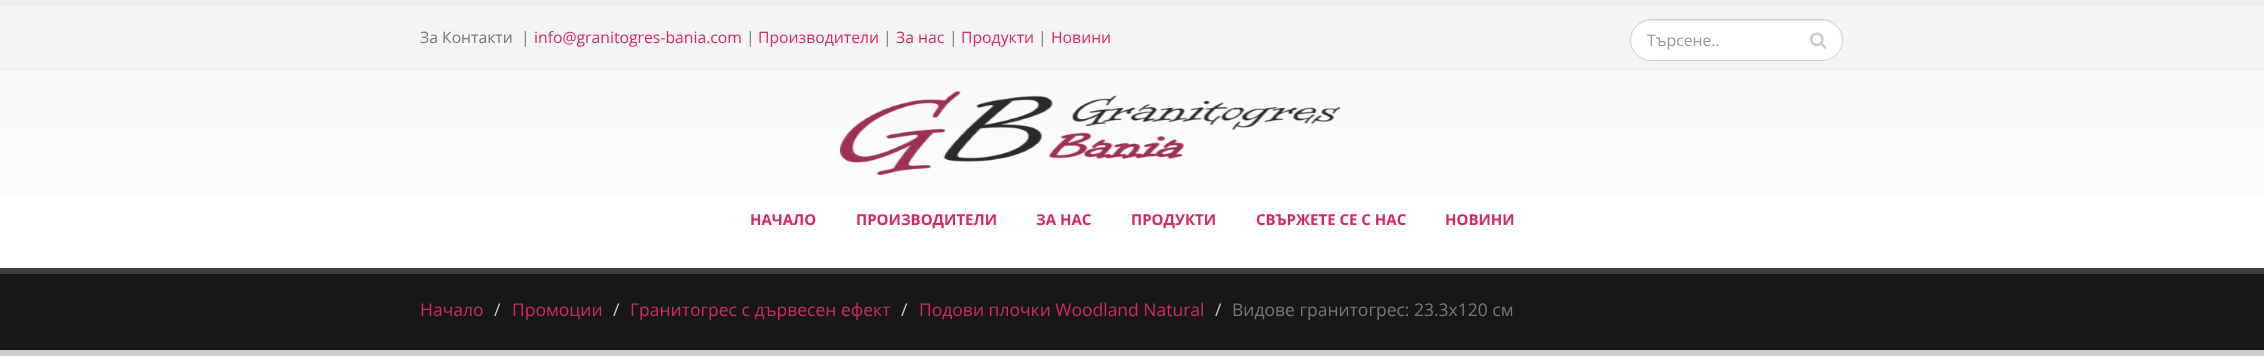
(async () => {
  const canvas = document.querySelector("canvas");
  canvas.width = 2264;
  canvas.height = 359;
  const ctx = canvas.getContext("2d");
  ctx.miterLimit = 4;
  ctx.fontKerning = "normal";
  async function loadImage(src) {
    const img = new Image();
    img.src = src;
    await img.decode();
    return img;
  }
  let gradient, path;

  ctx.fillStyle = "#ffffff";
  ctx.fillRect(0, 0, 2264, 359);
  gradient = ctx.createLinearGradient(1133, 6.2, 1133, 268);
  gradient.addColorStop(0, "#f6f6f6");
  gradient.addColorStop(1, "#ffffff");
  ctx.fillStyle = gradient;
  ctx.fillRect(0, 70, 2264, 125);
  for (const [x, y, w, h, color] of [
    [0, 0, 2264, 6, "#ededed"],
    [0, 6, 2264, 63, "#f4f4f4"],
    [0, 69, 2264, 1, "#ededed"],
  ]) {
    ctx.fillStyle = color;
    ctx.fillRect(x, y, w, h);
  }
  ctx.fillStyle = "#ffffff";
  ctx.beginPath();
  ctx.roundRect(1630, 19, 213, 42, 21);
  ctx.fill();
  ctx.fillStyle = "#ececec";
  path = new Path2D("M1651 21H1821C1832 21 1841 30 1841 41V40C1841 29 1832 20 1821 20H1651C1640 20 1631 29 1631 40V41C1631 30 1640 21 1651 21Z");
  ctx.fill(path);
  ctx.beginPath();
  ctx.roundRect(1630.5, 19.5, 212, 41, 20.5);
  ctx.strokeStyle = "#cccccc";
  ctx.stroke();
  ctx.drawImage(await loadImage("img/1.png"), 1810, 32, 17, 17);
  ctx.drawImage(await loadImage("img/2.png"), 840, 91, 500, 84);
  for (const [x, y, w, h, color] of [
    [0, 274, 2264, 76, "#171717"],
    [0, 268, 2264, 6, "#384045"],
    [0, 350, 2264, 6, "#cccccc"],
  ]) {
    ctx.fillStyle = color;
    ctx.fillRect(x, y, w, h);
  }
  ctx.font = "15.75px Open Sans";
  ctx.fillStyle = "#777777";
  ctx.fillText("За Контакти  |", 420, 43);
  ctx.fillStyle = "#d32966";
  ctx.fillText("info@granitogres-bania.com", 534, 43);
  ctx.fillStyle = "#777777";
  ctx.fillText("|", 746, 43);
  ctx.fillStyle = "#d32966";
  ctx.fillText("Производители", 758, 43);
  ctx.fillStyle = "#777777";
  ctx.fillText("|", 883, 43);
  ctx.fillStyle = "#d32966";
  ctx.fillText("За нас", 896, 43);
  ctx.fillStyle = "#777777";
  ctx.fillText("|", 949, 43);
  ctx.fillStyle = "#d32966";
  ctx.fillText("Продукти", 961, 43);
  ctx.fillStyle = "#777777";
  ctx.fillText("|", 1038, 43);
  ctx.fillStyle = "#d32966";
  ctx.fillText("Новини", 1051, 43);
  ctx.fillStyle = "#999999";
  ctx.fillText("Търсене..", 1647, 46);
  ctx.font = "bold 15px Open Sans";
  ctx.fillStyle = "#d32966";
  for (const [text, x, y] of [
    ["НАЧАЛО", 750, 225],
    ["ПРОИЗВОДИТЕЛИ", 856, 225],
    ["ЗА НАС", 1036, 225],
    ["ПРОДУКТИ", 1131, 225],
    ["СВЪРЖЕТЕ СЕ С НАС", 1256, 225],
    ["НОВИНИ", 1445, 225],
  ]) {
    ctx.fillText(text, x, y);
  }
  ctx.font = "17.5px Open Sans";
  ctx.fillText("Начало", 420, 316);
  ctx.fillStyle = "#cccccc";
  ctx.fillText("/", 494, 316);
  ctx.fillStyle = "#d32966";
  ctx.fillText("Промоции", 512, 316);
  ctx.fillStyle = "#cccccc";
  ctx.fillText("/", 613, 316);
  ctx.fillStyle = "#d32966";
  ctx.fillText("Гранитогрес с дървесен ефект", 630, 316);
  ctx.fillStyle = "#cccccc";
  ctx.fillText("/", 901, 316);
  ctx.fillStyle = "#d32966";
  ctx.fillText("Подови плочки Woodland Natural", 919, 316);
  ctx.fillStyle = "#cccccc";
  ctx.fillText("/", 1215, 316);
  ctx.fillStyle = "#777777";
  ctx.fillText("Видове гранитогрес: 23.3х120 см", 1232, 316);
})();
